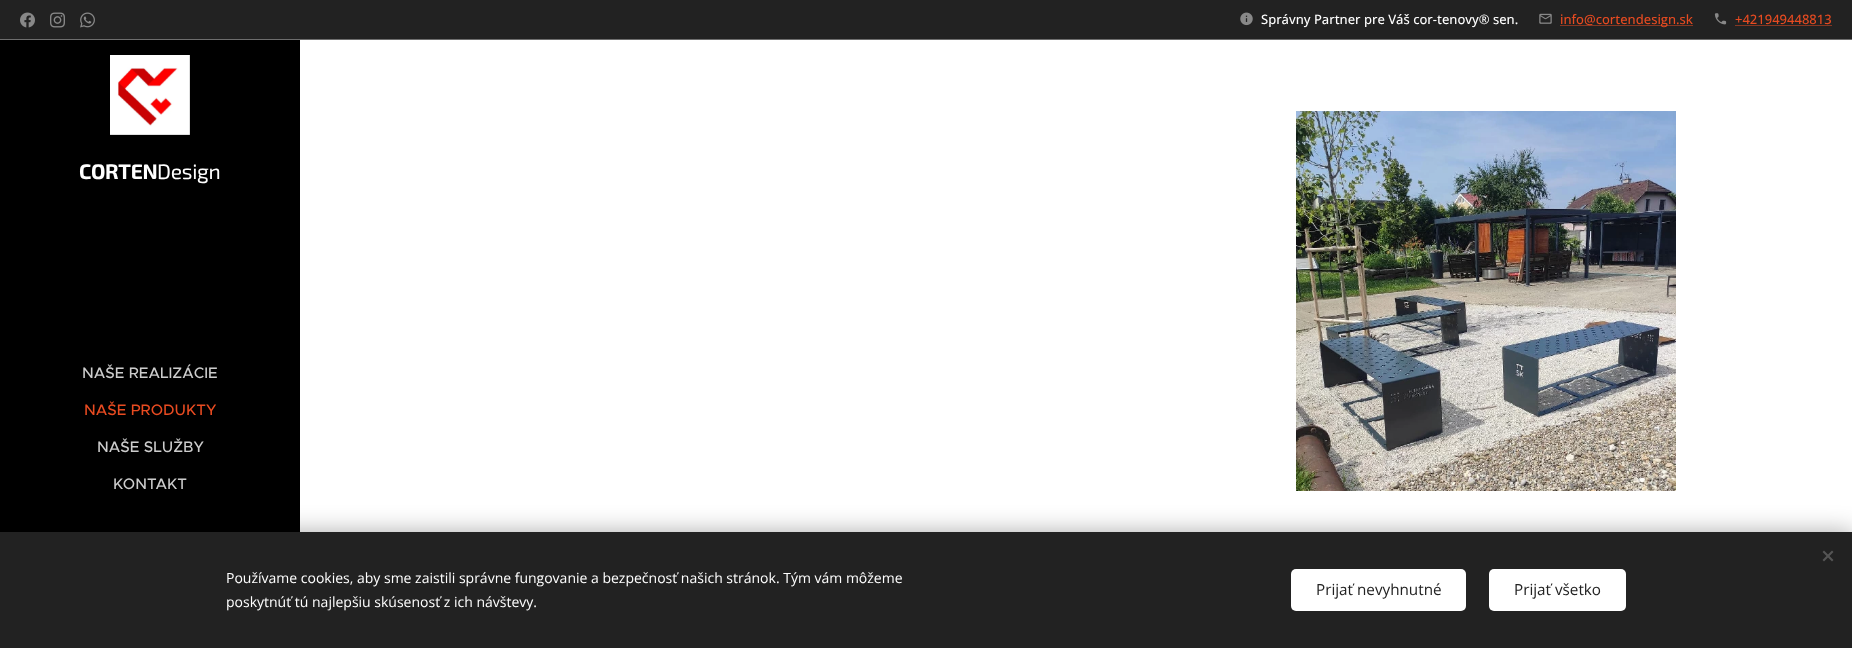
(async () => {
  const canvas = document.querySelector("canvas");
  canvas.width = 1852;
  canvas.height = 648;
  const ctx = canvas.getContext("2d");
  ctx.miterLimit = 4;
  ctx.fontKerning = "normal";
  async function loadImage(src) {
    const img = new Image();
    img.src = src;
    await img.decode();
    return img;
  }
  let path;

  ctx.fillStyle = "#ffffff";
  ctx.fillRect(0, 0, 1852, 648);
  ctx.fillStyle = "#222222";
  ctx.fillRect(0, 0, 1852, 39);
  ctx.drawImage(await loadImage("img/1.png"), 20, 12, 15, 16);
  ctx.drawImage(await loadImage("img/2.png"), 50, 12, 15, 16);
  ctx.drawImage(await loadImage("img/3.png"), 80, 12, 15, 16);
  ctx.drawImage(await loadImage("img/4.png"), 1240, 12, 13, 14);
  ctx.drawImage(await loadImage("img/5.png"), 1539, 13, 13, 11);
  ctx.fillStyle = "#853722";
  ctx.fillRect(1560, 25, 133, 1);
  ctx.drawImage(await loadImage("img/6.png"), 1714, 13, 13, 12);
  for (const [x, y, w, h, color] of [
    [1735, 25, 97, 1, "#853722"],
    [0, 39, 1852, 1, "#6e6e6e"],
    [0, 40, 300, 492, "#000000"],
  ]) {
    ctx.fillStyle = color;
    ctx.fillRect(x, y, w, h);
  }
  ctx.drawImage(await loadImage("img/7.png"), 110, 55, 80, 80);
  ctx.drawImage(await loadImage("img/8.png"), 1296, 111, 380, 380);
  ctx.fillStyle = "rgba(0, 0, 0, 0.33)";
  ctx.filter = "blur(12.5px)";
  ctx.beginPath();
  ctx.rect(0, 532, 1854, 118);
  ctx.fill();
  ctx.filter = "none";
  ctx.fillStyle = "#222222";
  ctx.fillRect(0, 532, 1852, 116);
  ctx.fillStyle = "#555555";
  path = new Path2D("M1822.5 560L1832 550.5L1833.5 552L1824 561.5Z");
  ctx.fill(path);
  path = new Path2D("M1824 550.5L1833.5 560L1832 561.5L1822.5 552Z");
  ctx.fill(path);
  ctx.fillStyle = "#ffffff";
  ctx.beginPath();
  ctx.roundRect(1291, 569, 175, 42, 5);
  ctx.fill();
  ctx.beginPath();
  ctx.roundRect(1489, 569, 137, 42, 5);
  ctx.fill();
  ctx.font = "500 13px Open Sans";
  ctx.fillText("Správny Partner pre Váš cor-tenovy® sen.", 1261, 24);
  ctx.fillStyle = "#e84b21";
  ctx.fillText("info@cortendesign.sk", 1560, 24);
  ctx.fillText("+421949448813", 1735, 24);
  ctx.letterSpacing = "-0.25px";
  ctx.font = "bold 21px 'Exo 2'";
  ctx.fillStyle = "#ffffff";
  ctx.fillText("CORTEN", 79, 179);
  ctx.font = "21px 'Exo 2'";
  ctx.fillText("Design", 157, 179);
  ctx.letterSpacing = "0px";
  ctx.font = "500 15.25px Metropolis";
  ctx.fillStyle = "#cccccc";
  ctx.fillText("NAŠE REALIZÁCIE", 82, 378);
  ctx.fillStyle = "#e84b21";
  ctx.fillText("NAŠE PRODUKTY", 84, 415);
  ctx.fillStyle = "#cccccc";
  ctx.fillText("NAŠE SLUŽBY", 97, 452);
  ctx.fillText("KONTAKT", 113, 489);
  ctx.font = "14px Open Sans";
  ctx.fillStyle = "#ffffff";
  ctx.fillText("Používame cookies, aby sme zaistili správne fungovanie a bezpečnosť našich stránok. Tým vám môžeme", 226, 583);
  ctx.fillText("poskytnúť tú najlepšiu skúsenosť z ich návštevy.", 226, 607);
  ctx.font = "15.25px Open Sans";
  ctx.fillStyle = "#222222";
  ctx.fillText("Prijať nevyhnutné", 1316, 595);
  ctx.fillText("Prijať všetko", 1514, 595);
})();
